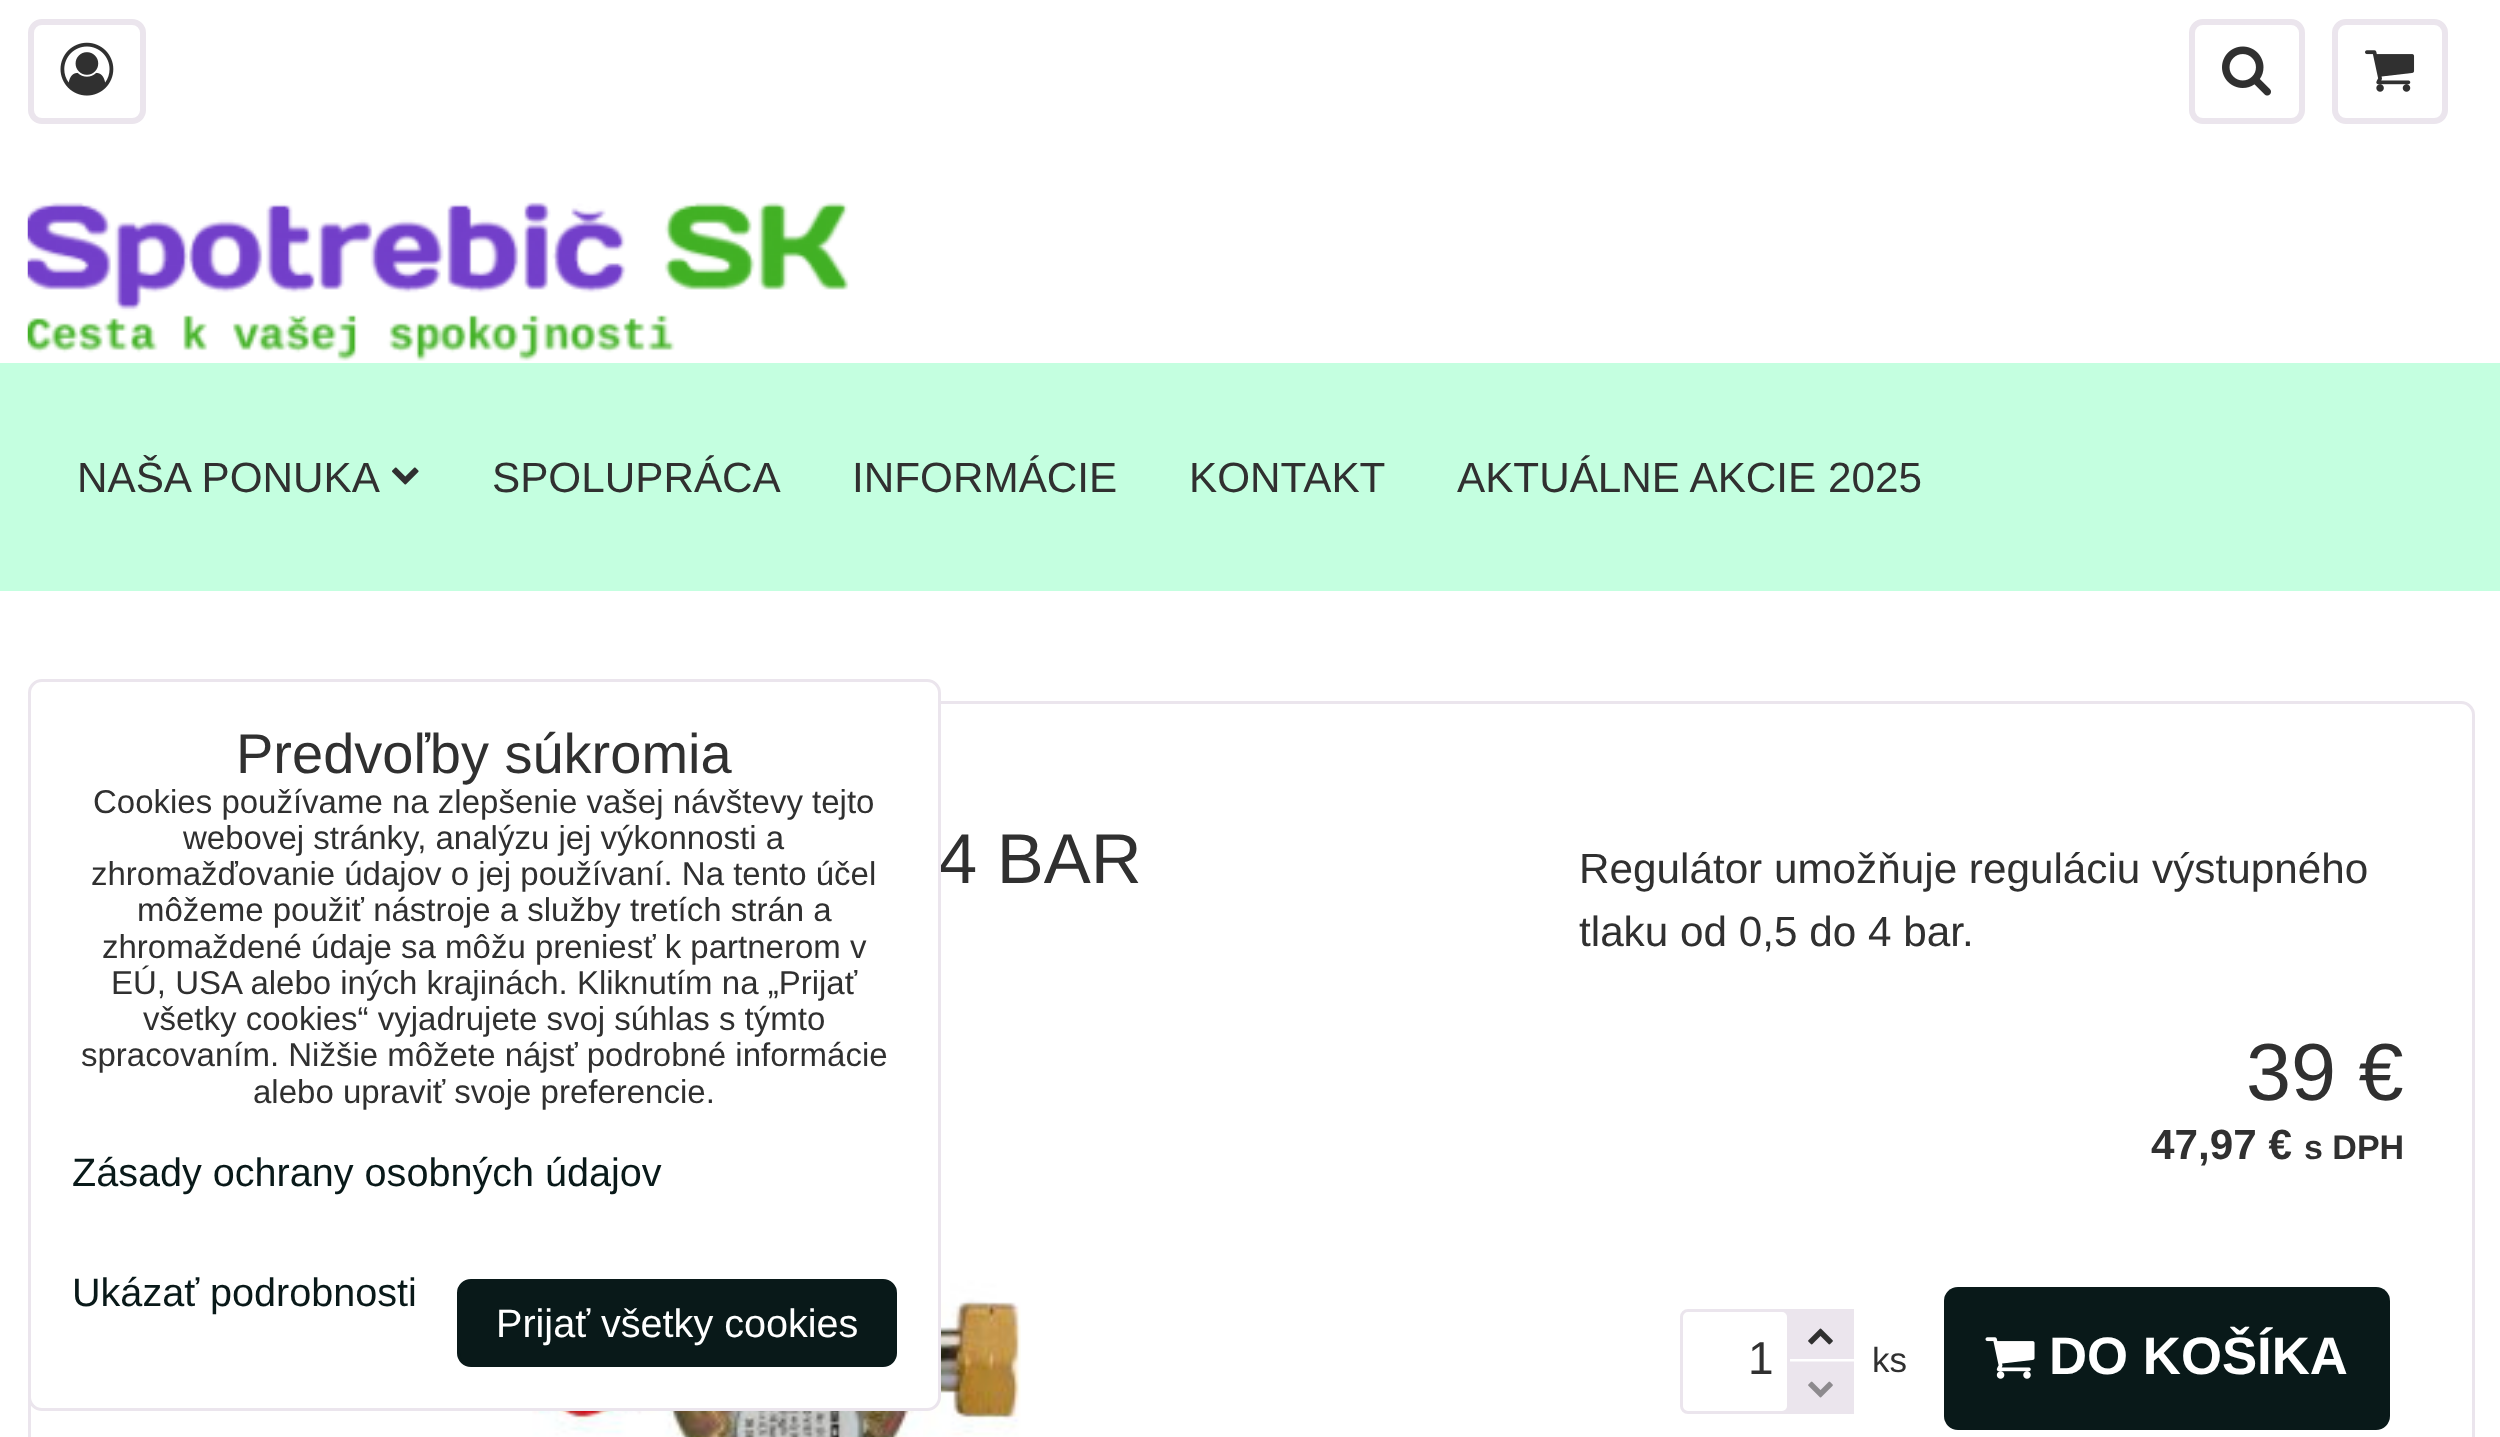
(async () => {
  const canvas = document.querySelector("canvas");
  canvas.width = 2500;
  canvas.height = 1437;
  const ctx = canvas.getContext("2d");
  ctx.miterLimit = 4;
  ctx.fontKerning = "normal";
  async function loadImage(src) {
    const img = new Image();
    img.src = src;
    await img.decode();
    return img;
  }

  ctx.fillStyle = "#ffffff";
  ctx.fillRect(0, 0, 2500, 1437);
  ctx.beginPath();
  ctx.roundRect(31, 22, 112, 99, 11);
  ctx.strokeStyle = "#ebe5ed";
  ctx.lineWidth = 6;
  ctx.stroke();
  ctx.drawImage(await loadImage("img/1.png"), 60, 42, 54, 54);
  ctx.beginPath();
  ctx.roundRect(2192, 22, 110, 99, 11);
  ctx.stroke();
  ctx.drawImage(await loadImage("img/2.png"), 2222, 46, 49, 50);
  ctx.beginPath();
  ctx.roundRect(2335, 22, 110, 99, 11);
  ctx.stroke();
  ctx.drawImage(await loadImage("img/3.png"), 2365, 50, 50, 42);
  ctx.drawImage(await loadImage("img/4.png"), 27, 202, 823, 159);
  ctx.fillStyle = "#c4ffe0";
  ctx.fillRect(0, 363, 2500, 228);
  ctx.drawImage(await loadImage("img/5.png"), 392, 467, 27, 18);
  ctx.beginPath();
  ctx.roundRect(29.5, 702.5, 2444, 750, 12.5);
  ctx.lineWidth = 3;
  ctx.stroke();
  ctx.drawImage(await loadImage("img/6.png"), 532, 1050, 489, 387);
  ctx.fillStyle = "#ebe5ed";
  ctx.fillRect(1782, 1309, 72, 105);
  ctx.fillStyle = "#ffffff";
  ctx.beginPath();
  ctx.roundRect(1681.5, 1310.5, 107, 102, 6.5);
  ctx.fill();
  ctx.stroke();
  ctx.drawImage(await loadImage("img/7.png"), 1808, 1328, 25, 17);
  ctx.fillRect(1790, 1359, 64, 3);
  ctx.fillStyle = "rgba(235, 229, 237, 0.5)";
  ctx.beginPath();
  ctx.roundRect(1790, 1361, 64, 53, [0, 0, 8, 0]);
  ctx.fill();
  ctx.drawImage(await loadImage("img/8.png"), 1808, 1381, 25, 17);
  ctx.fillStyle = "#091919";
  ctx.beginPath();
  ctx.roundRect(1944, 1287, 446, 143, 14);
  ctx.fill();
  ctx.drawImage(await loadImage("img/9.png"), 1985, 1337, 50, 42);
  ctx.font = "42.25px Liberation Sans";
  ctx.fillStyle = "#303030";
  for (const [text, x, y] of [
    ["NAŠA PONUKA", 77, 492],
    ["SPOLUPRÁCA", 492, 492],
    ["INFORMÁCIE", 852, 492],
    ["KONTAKT", 1189, 492],
    ["AKTUÁLNE AKCIE 2025", 1457, 492],
  ]) {
    ctx.fillText(text, x, y);
  }
  ctx.font = "70.5px Liberation Sans";
  ctx.fillText("4 BAR", 938, 883);
  ctx.font = "42.25px Liberation Sans";
  ctx.fillText("Regulátor umožňuje reguláciu výstupného", 1579, 883);
  ctx.fillText("tlaku od 0,5 do 4 bar.", 1579, 946);
  ctx.font = "81px Liberation Sans";
  ctx.fillText("39 €", 2246, 1100);
  ctx.font = "bold 42.25px Liberation Sans";
  ctx.fillText("47,97 €", 2151, 1159);
  ctx.font = "bold 34px Liberation Sans";
  ctx.fillText("s DPH", 2304, 1159);
  ctx.font = "46px Liberation Sans";
  ctx.fillText("1", 1748, 1374);
  ctx.font = "35px Liberation Sans";
  ctx.fillText("ks", 1872, 1372);
  ctx.font = "bold 52.75px Liberation Sans";
  ctx.fillStyle = "#ffffff";
  ctx.fillText("DO KOŠÍKA", 2049, 1374);
  ctx.beginPath();
  ctx.roundRect(29.5, 680.5, 910, 729, 12.5);
  ctx.fill();
  ctx.stroke();
  ctx.font = "56px Liberation Sans";
  ctx.fillStyle = "#303030";
  ctx.fillText("Predvoľby súkromia", 236, 773);
  ctx.font = "33px Liberation Sans";
  for (const [text, x, y] of [
    ["Cookies používame na zlepšenie vašej návštevy tejto", 93, 813],
    ["webovej stránky, analýzu jej výkonnosti a", 183, 849],
    ["zhromažďovanie údajov o jej používaní. Na tento účel", 91, 885],
    ["môžeme použiť nástroje a služby tretích strán a", 137, 921],
    ["zhromaždené údaje sa môžu preniesť k partnerom v", 102, 958],
    ["EÚ, USA alebo iných krajinách. Kliknutím na „Prijať", 111, 994],
    ["všetky cookies“ vyjadrujete svoj súhlas s týmto", 143, 1030],
    ["spracovaním. Nižšie môžete nájsť podrobné informácie", 81, 1066],
    ["alebo upraviť svoje preferencie.", 253, 1103],
  ]) {
    ctx.fillText(text, x, y);
  }
  ctx.font = "39.6px Liberation Sans";
  ctx.fillStyle = "#091919";
  ctx.fillText("Zásady ochrany osobných údajov", 72, 1186);
  ctx.fillText("Ukázať podrobnosti", 72, 1306);
  ctx.beginPath();
  ctx.roundRect(458.5, 1280.5, 437, 85, 12.5);
  ctx.fill();
  ctx.strokeStyle = "#091919";
  ctx.stroke();
  ctx.fillStyle = "#ffffff";
  ctx.fillText("Prijať všetky cookies", 496, 1337);
})();
